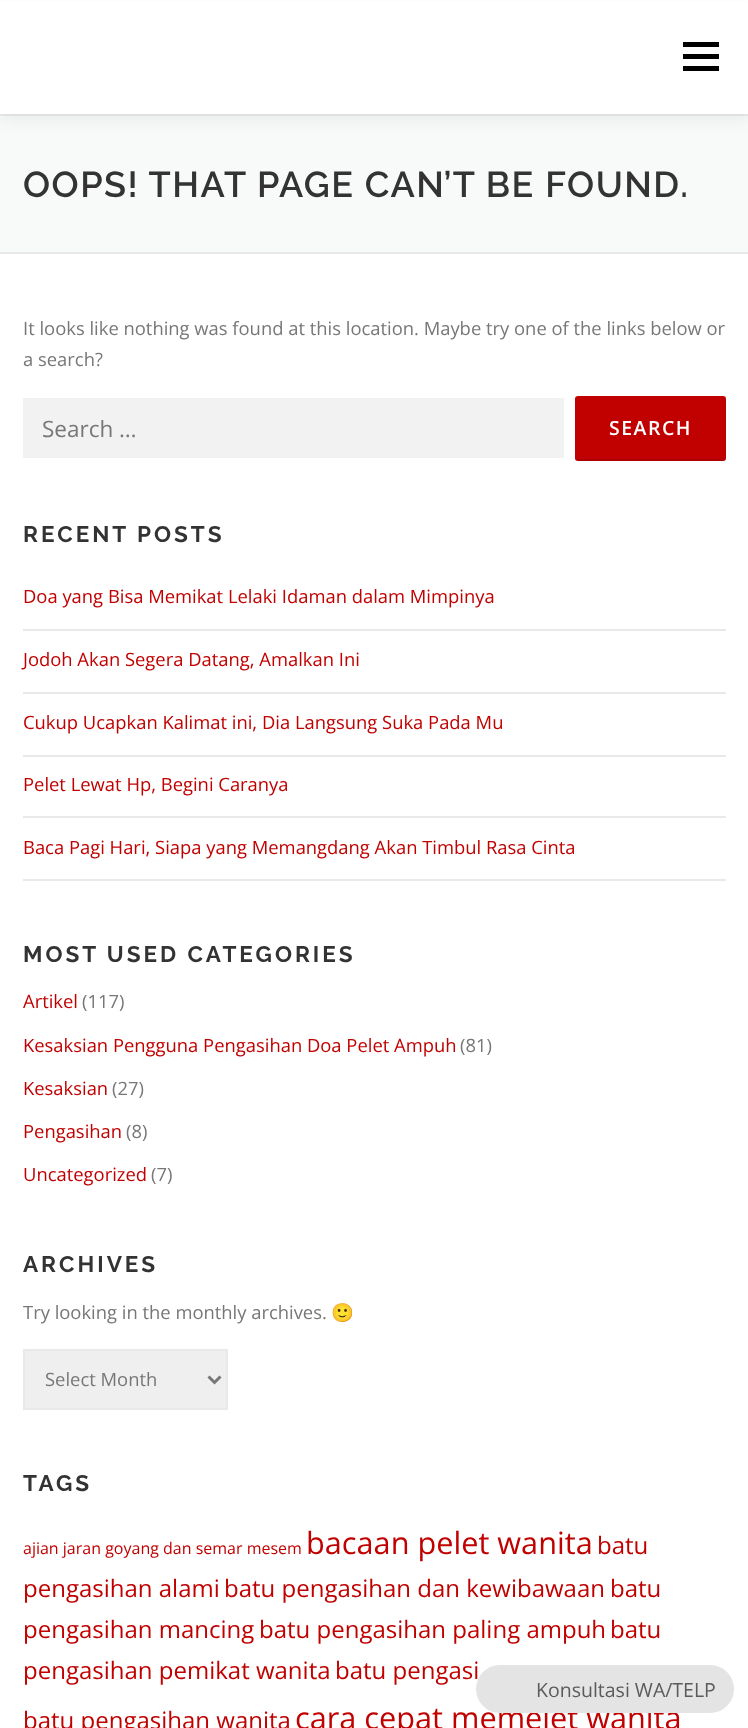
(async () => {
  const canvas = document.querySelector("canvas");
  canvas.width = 748;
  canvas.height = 1728;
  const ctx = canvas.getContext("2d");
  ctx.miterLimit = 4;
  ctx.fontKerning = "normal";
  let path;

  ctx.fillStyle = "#ffffff";
  ctx.fillRect(0, 0, 748, 1728);
  ctx.fillStyle = "#f8f9f9";
  ctx.fillRect(0, 116, 748, 136);
  ctx.fillStyle = "#e9e9e9";
  ctx.fillRect(0, 114, 748, 2);
  ctx.fillStyle = "rgba(50, 50, 50, 0.06)";
  ctx.filter = "blur(7.5px)";
  ctx.beginPath();
  ctx.rect(0, 8, 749, 114);
  ctx.fill();
  ctx.filter = "none";
  for (const [x, y, w, h, color] of [
    [0, 2, 748, 112, "#ffffff"],
    [683, 54, 36, 5, "#000000"],
    [683, 42, 36, 5, "#000000"],
    [683, 66, 36, 5, "#000000"],
    [0, 252, 748, 2, "#e9e9e9"],
    [23, 398, 541, 60, "#f2f2f2"],
  ]) {
    ctx.fillStyle = color;
    ctx.fillRect(x, y, w, h);
  }
  ctx.fillStyle = "#c10000";
  ctx.beginPath();
  ctx.roundRect(575, 396, 151, 65, 3);
  ctx.fill();
  ctx.fillStyle = "rgba(0, 0, 0, 0.1)";
  path = new Path2D("M575 458C575 460 576 461 578 461H723C725 461 726 460 726 458V456C726 458 725 459 723 459H578C577 459 576 459 575 458Z");
  ctx.fill(path);
  for (const [x, y, w, h, color] of [
    [23, 629, 703, 2, "#e9e9e9"],
    [23, 692, 703, 2, "#e9e9e9"],
    [23, 755, 703, 2, "#e9e9e9"],
    [23, 816, 703, 2, "#e9e9e9"],
    [23, 879, 703, 2, "#e9e9e9"],
  ]) {
    ctx.fillStyle = color;
    ctx.fillRect(x, y, w, h);
  }
  ctx.fillStyle = "#efefef";
  ctx.beginPath();
  ctx.rect(24, 1350, 203, 59);
  ctx.fill();
  ctx.strokeStyle = "#e9e9e9";
  ctx.lineWidth = 2;
  ctx.stroke();
  path = new Path2D("M208.5 1376.5L214.5 1382.5L220.5 1376.5");
  ctx.strokeStyle = "#777777";
  ctx.lineWidth = 3;
  ctx.stroke(path);
  ctx.letterSpacing = "1.5px";
  ctx.font = "600 36px Raleway";
  ctx.fillStyle = "#333333";
  ctx.fillText("OOPS! THAT PAGE CAN’T BE FOUND.", 23, 197);
  ctx.letterSpacing = "0px";
  ctx.font = "18.4px Open Sans";
  ctx.fillStyle = "#777777";
  ctx.fillText("It looks like nothing was found at this location. Maybe try one of the links below or", 23, 335);
  ctx.fillText("a search?", 23, 366);
  ctx.font = "22.5px Open Sans";
  ctx.fillText("Search …", 42, 437);
  ctx.letterSpacing = "1.5px";
  ctx.font = "600 19.5px Open Sans";
  ctx.fillStyle = "#ffffff";
  ctx.fillText("SEARCH", 609, 435);
  ctx.letterSpacing = "3px";
  ctx.font = "bold 22.5px Raleway";
  ctx.fillStyle = "#333333";
  ctx.fillText("RECENT POSTS", 23, 542);
  ctx.letterSpacing = "0px";
  ctx.font = "18.4px Open Sans";
  ctx.fillStyle = "#c10000";
  for (const [text, x, y] of [
    ["Doa yang Bisa Memikat Lelaki Idaman dalam Mimpinya", 23, 603],
    ["Jodoh Akan Segera Datang, Amalkan Ini", 23, 666],
    ["Cukup Ucapkan Kalimat ini, Dia Langsung Suka Pada Mu", 23, 729],
    ["Pelet Lewat Hp, Begini Caranya", 23, 791],
    ["Baca Pagi Hari, Siapa yang Memangdang Akan Timbul Rasa Cinta", 23, 854],
  ]) {
    ctx.fillText(text, x, y);
  }
  ctx.letterSpacing = "3px";
  ctx.font = "bold 22.5px Raleway";
  ctx.fillStyle = "#333333";
  ctx.fillText("MOST USED CATEGORIES", 23, 962);
  ctx.letterSpacing = "0px";
  ctx.font = "18.4px Open Sans";
  ctx.fillStyle = "#c10000";
  ctx.fillText("Artikel", 23, 1008);
  ctx.fillStyle = "#777777";
  ctx.fillText("(117)", 82, 1008);
  ctx.fillStyle = "#c10000";
  ctx.fillText("Kesaksian Pengguna Pengasihan Doa Pelet Ampuh", 23, 1052);
  ctx.fillStyle = "#777777";
  ctx.fillText("(81)", 460, 1052);
  ctx.fillStyle = "#c10000";
  ctx.fillText("Kesaksian", 23, 1095);
  ctx.fillStyle = "#777777";
  ctx.fillText("(27)", 112, 1095);
  ctx.fillStyle = "#c10000";
  ctx.fillText("Pengasihan", 23, 1138);
  ctx.fillStyle = "#777777";
  ctx.fillText("(8)", 126, 1138);
  ctx.fillStyle = "#c10000";
  ctx.fillText("Uncategorized", 23, 1181);
  ctx.fillStyle = "#777777";
  ctx.fillText("(7)", 151, 1181);
  ctx.letterSpacing = "3px";
  ctx.font = "bold 22.5px Raleway";
  ctx.fillStyle = "#333333";
  ctx.fillText("ARCHIVES", 23, 1272);
  ctx.letterSpacing = "0px";
  ctx.font = "18.4px Open Sans";
  ctx.fillStyle = "#777777";
  ctx.fillText("Try looking in the monthly archives.", 23, 1319);
  ctx.font = "18.4px Noto Color Emoji";
  ctx.fillText("🙂", 331, 1319);
  ctx.font = "18.4px Open Sans";
  ctx.fillText("Select Month", 45, 1386);
  ctx.letterSpacing = "3px";
  ctx.font = "bold 22.5px Raleway";
  ctx.fillStyle = "#333333";
  ctx.fillText("TAGS", 23, 1491);
  ctx.letterSpacing = "0px";
  ctx.font = "16px Open Sans";
  ctx.fillStyle = "#c10000";
  ctx.fillText("ajian jaran goyang dan semar mesem", 23, 1554);
  ctx.font = "30.7px Open Sans";
  ctx.fillText("bacaan pelet wanita", 306, 1554);
  ctx.font = "24px Open Sans";
  for (const [text, x, y] of [
    ["batu", 597, 1554],
    ["pengasihan alami", 23, 1597],
    ["batu pengasihan dan kewibawaan", 224, 1597],
    ["batu", 610, 1597],
    ["pengasihan mancing", 23, 1638],
    ["batu pengasihan paling ampuh", 259, 1638],
    ["batu", 610, 1638],
    ["pengasihan pemikat wanita", 23, 1679],
    ["batu pengasi", 335, 1679],
    ["batu pengasihan wanita", 23, 1729],
  ]) {
    ctx.fillText(text, x, y);
  }
  ctx.font = "30.7px Open Sans";
  ctx.fillText("cara cepat memelet wanita", 295, 1729);
  ctx.fillStyle = "#e4e4e4";
  ctx.beginPath();
  ctx.roundRect(476, 1665, 258, 48, 24);
  ctx.fill();
  ctx.font = "19.5px Open Sans";
  ctx.fillStyle = "#5b5b5b";
  ctx.fillText("Konsultasi WA/TELP", 536, 1697);
})();
